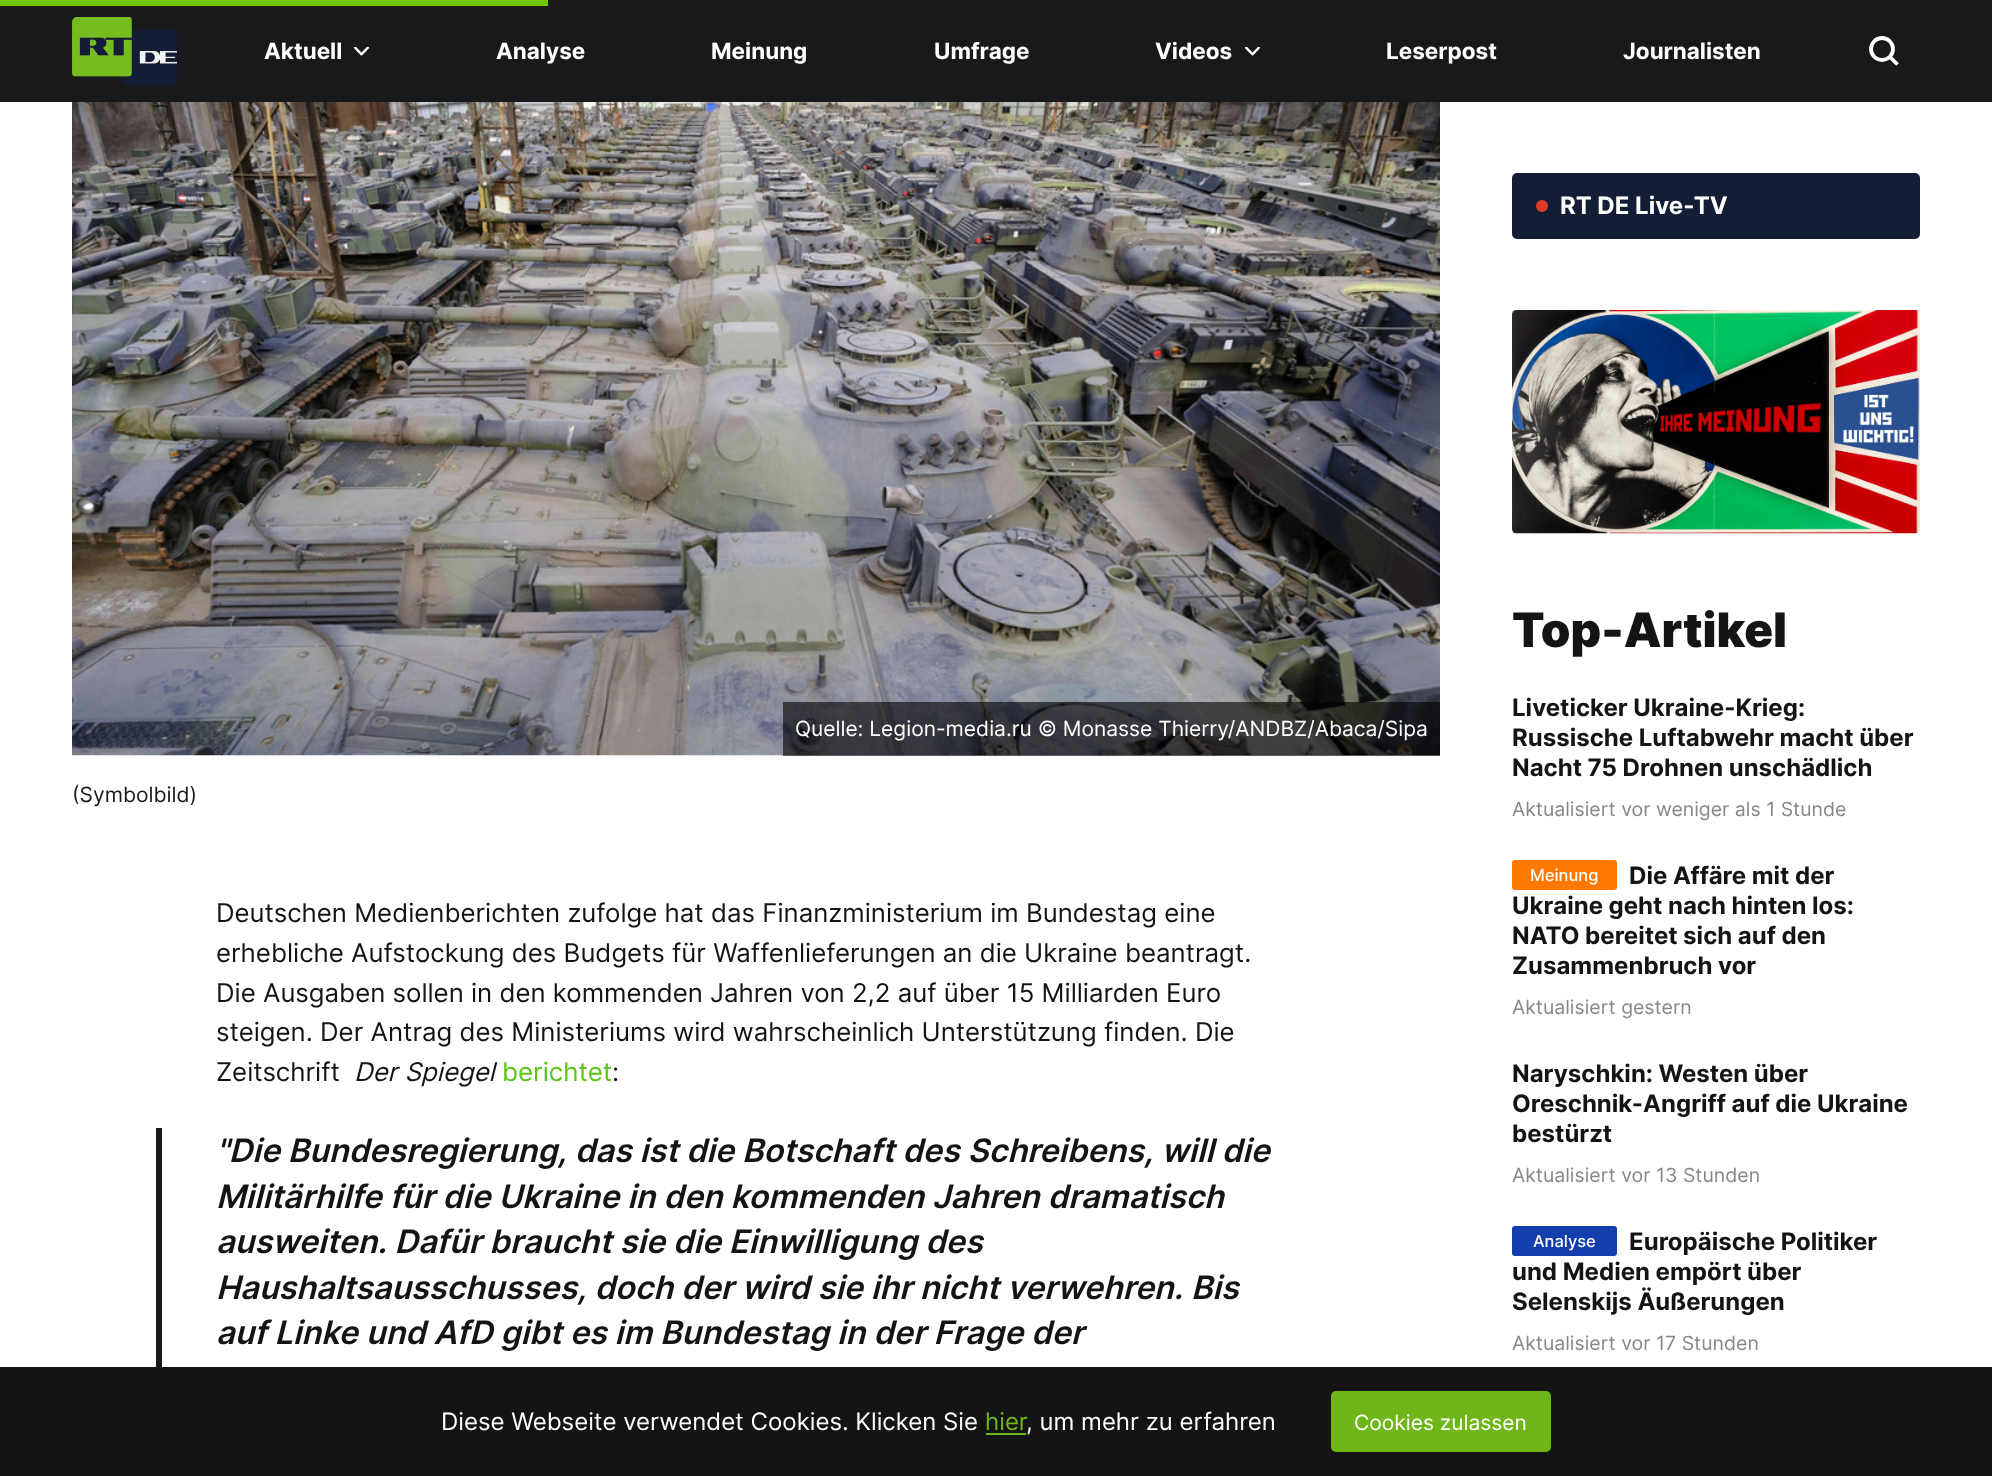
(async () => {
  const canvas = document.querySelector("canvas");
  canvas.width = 1992;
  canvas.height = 1476;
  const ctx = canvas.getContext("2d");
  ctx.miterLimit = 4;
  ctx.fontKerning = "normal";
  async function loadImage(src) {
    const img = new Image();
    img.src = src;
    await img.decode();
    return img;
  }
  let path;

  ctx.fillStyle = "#ffffff";
  ctx.fillRect(0, 0, 1992, 1476);
  ctx.fillStyle = "#18191a";
  ctx.fillRect(0, 0, 1992, 102);
  ctx.fillStyle = "#6ec702";
  ctx.fillRect(0, 0, 548, 6);
  ctx.drawImage(await loadImage("img/1.png"), 72, 17, 105, 68);
  ctx.drawImage(await loadImage("img/2.png"), 354, 47, 15, 9);
  ctx.drawImage(await loadImage("img/2.png"), 1245, 47, 15, 9);
  ctx.beginPath();
  ctx.arc(1882, 49, 11, 0, Math.PI * 2);
  ctx.strokeStyle = "#ffffff";
  ctx.lineWidth = 3.8;
  ctx.stroke();
  path = new Path2D("M1889.5 56.5L1897.5 64.5");
  ctx.stroke(path);
  ctx.drawImage(await loadImage("img/3.png"), 72, 102, 1368, 654);
  ctx.fillStyle = "rgba(0, 0, 0, 0.6)";
  ctx.fillRect(783, 702, 657, 54);
  ctx.fillStyle = "#18191a";
  ctx.fillRect(156, 1128, 6, 239);
  ctx.fillStyle = "#131d36";
  ctx.beginPath();
  ctx.roundRect(1512, 173, 408, 66, 5);
  ctx.fill();
  ctx.fillStyle = "#e13a28";
  ctx.beginPath();
  ctx.arc(1542, 206, 6, 0, Math.PI * 2);
  ctx.fill();
  ctx.drawImage(await loadImage("img/4.png"), 1512, 310, 408, 224);
  ctx.fillStyle = "#ff7800";
  ctx.beginPath();
  ctx.roundRect(1512, 860, 105, 30, 3);
  ctx.fill();
  ctx.fillStyle = "#133fad";
  ctx.beginPath();
  ctx.roundRect(1512, 1226, 105, 30, 3);
  ctx.fill();
  ctx.fillStyle = "#141414";
  ctx.fillRect(0, 1367, 1992, 109);
  ctx.fillStyle = "#6fb719";
  ctx.fillRect(986, 1433, 40, 2);
  ctx.beginPath();
  ctx.roundRect(1331, 1391, 220, 61, 5);
  ctx.fill();
  ctx.font = "bold 22.5px Inter";
  ctx.fillStyle = "#ffffff";
  for (const [text, x, y] of [
    ["Aktuell", 264, 59],
    ["Analyse", 496, 59],
    ["Meinung", 711, 59],
    ["Umfrage", 934, 59],
    ["Videos", 1155, 59],
    ["Leserpost", 1386, 59],
    ["Journalisten", 1623, 59],
  ]) {
    ctx.fillText(text, x, y);
  }
  ctx.font = "21px Inter";
  ctx.fillText("Quelle: Legion-media.ru © Monasse Thierry/ANDBZ/Abaca/Sipa", 795, 736);
  ctx.fillStyle = "#18191a";
  ctx.fillText("(Symbolbild)", 72, 802);
  ctx.font = "25.8px Inter";
  ctx.fillStyle = "#141414";
  for (const [text, x, y] of [
    ["Deutschen Medienberichten zufolge hat das Finanzministerium im Bundestag eine", 216, 922],
    ["erhebliche Aufstockung des Budgets für Waffenlieferungen an die Ukraine beantragt.", 216, 962],
    ["Die Ausgaben sollen in den kommenden Jahren von 2,2 auf über 15 Milliarden Euro", 216, 1002],
    ["steigen. Der Antrag des Ministeriums wird wahrscheinlich Unterstützung finden. Die", 216, 1041],
    ["Zeitschrift", 216, 1081],
  ]) {
    ctx.fillText(text, x, y);
  }
  ctx.font = "italic 25.8px Inter";
  ctx.fillText("Der Spiegel", 354, 1081);
  ctx.font = "25.8px Inter";
  ctx.fillStyle = "#59c513";
  ctx.fillText("berichtet", 502, 1081);
  ctx.fillStyle = "#141414";
  ctx.fillText(":", 612, 1081);
  ctx.font = "italic 600 32.35px Inter";
  for (const [text, x, y] of [
    ["\"Die Bundesregierung, das ist die Botschaft des Schreibens, will die", 216, 1162],
    ["Militärhilfe für die Ukraine in den kommenden Jahren dramatisch", 216, 1208],
    ["ausweiten. Dafür braucht sie die Einwilligung des", 216, 1253],
    ["Haushaltsausschusses, doch der wird sie ihr nicht verwehren. Bis", 216, 1299],
    ["auf Linke und AfD gibt es im Bundestag in der Frage der", 216, 1344],
  ]) {
    ctx.fillText(text, x, y);
  }
  ctx.font = "bold 24px Inter";
  ctx.fillStyle = "#ffffff";
  ctx.fillText("RT DE Live-TV", 1560, 214);
  ctx.font = "900 47.5px Inter";
  ctx.fillStyle = "#141414";
  ctx.fillText("Top-Artikel", 1512, 647);
  ctx.font = "bold 24px Inter";
  for (const [text, x, y] of [
    ["Liveticker Ukraine-Krieg:", 1512, 716],
    ["Russische Luftabwehr macht über", 1512, 746],
    ["Nacht 75 Drohnen unschädlich", 1512, 776],
  ]) {
    ctx.fillText(text, x, y);
  }
  ctx.font = "19.5px Inter";
  ctx.fillStyle = "#888888";
  ctx.fillText("Aktualisiert vor weniger als 1 Stunde", 1512, 816);
  ctx.font = "bold 24px Inter";
  ctx.fillStyle = "#141414";
  for (const [text, x, y] of [
    ["Die Affäre mit der", 1629, 884],
    ["Ukraine geht nach hinten los:", 1512, 914],
    ["NATO bereitet sich auf den", 1512, 944],
    ["Zusammenbruch vor", 1512, 974],
  ]) {
    ctx.fillText(text, x, y);
  }
  ctx.font = "500 16.5px Inter";
  ctx.fillStyle = "#ffffff";
  ctx.fillText("Meinung", 1530, 881);
  ctx.font = "19.5px Inter";
  ctx.fillStyle = "#888888";
  ctx.fillText("Aktualisiert gestern", 1512, 1014);
  ctx.font = "bold 24px Inter";
  ctx.fillStyle = "#141414";
  for (const [text, x, y] of [
    ["Naryschkin: Westen über", 1512, 1082],
    ["Oreschnik-Angriff auf die Ukraine", 1512, 1112],
    ["bestürzt", 1512, 1142],
  ]) {
    ctx.fillText(text, x, y);
  }
  ctx.font = "19.5px Inter";
  ctx.fillStyle = "#888888";
  ctx.fillText("Aktualisiert vor 13 Stunden", 1512, 1182);
  ctx.font = "bold 24px Inter";
  ctx.fillStyle = "#141414";
  for (const [text, x, y] of [
    ["Europäische Politiker", 1629, 1250],
    ["und Medien empört über", 1512, 1280],
    ["Selenskijs Äußerungen", 1512, 1310],
  ]) {
    ctx.fillText(text, x, y);
  }
  ctx.font = "500 16.5px Inter";
  ctx.fillStyle = "#ffffff";
  ctx.fillText("Analyse", 1533, 1247);
  ctx.font = "19.5px Inter";
  ctx.fillStyle = "#888888";
  ctx.fillText("Aktualisiert vor 17 Stunden", 1512, 1350);
  ctx.font = "24px Inter";
  ctx.fillStyle = "#ffffff";
  ctx.fillText("Diese Webseite verwendet Cookies. Klicken Sie", 441, 1430);
  ctx.fillStyle = "#6fb719";
  ctx.fillText("hier", 985, 1430);
  ctx.fillStyle = "#ffffff";
  ctx.fillText(", um mehr zu erfahren", 1026, 1430);
  ctx.font = "21px Inter";
  ctx.fillText("Cookies zulassen", 1354, 1430);
})();
